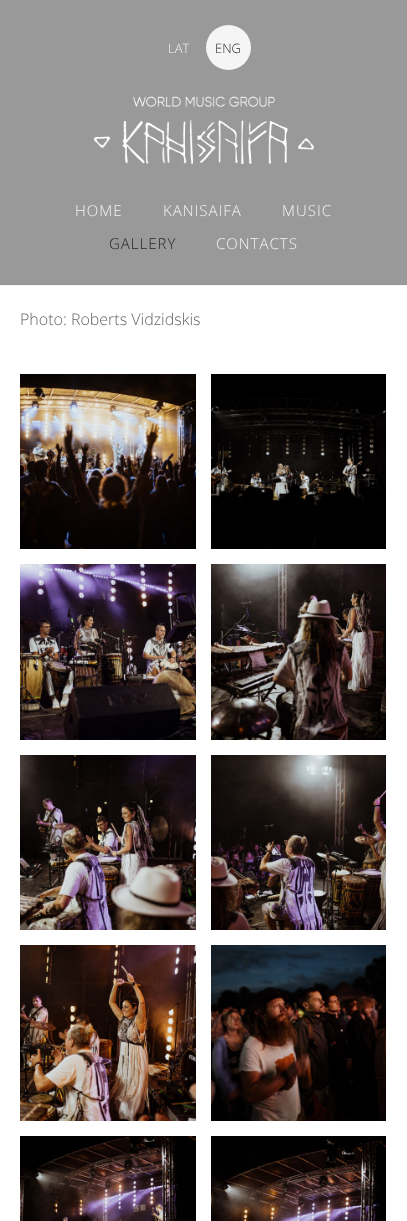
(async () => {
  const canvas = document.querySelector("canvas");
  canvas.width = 407;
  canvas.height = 1221;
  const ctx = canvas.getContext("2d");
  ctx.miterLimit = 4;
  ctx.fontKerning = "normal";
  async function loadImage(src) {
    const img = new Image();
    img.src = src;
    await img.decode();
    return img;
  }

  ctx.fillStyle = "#ffffff";
  ctx.fillRect(0, 0, 407, 1221);
  ctx.fillStyle = "#999999";
  ctx.fillRect(0, 0, 407, 285);
  ctx.fillStyle = "#f5f5f5";
  ctx.fillRect(0, 285, 407, 1);
  ctx.beginPath();
  ctx.arc(228.5, 47.5, 22.5, 0, Math.PI * 2);
  ctx.fill();
  ctx.drawImage(await loadImage("img/1.png"), 94, 96, 220, 68);
  ctx.drawImage(await loadImage("img/2.png"), 20, 374, 176, 175);
  ctx.drawImage(await loadImage("img/3.png"), 211, 374, 175, 175);
  ctx.drawImage(await loadImage("img/4.png"), 20, 564, 176, 176);
  ctx.drawImage(await loadImage("img/5.png"), 211, 564, 175, 176);
  ctx.drawImage(await loadImage("img/6.png"), 20, 755, 176, 175);
  ctx.drawImage(await loadImage("img/7.png"), 211, 755, 175, 175);
  ctx.drawImage(await loadImage("img/8.png"), 20, 945, 176, 176);
  ctx.drawImage(await loadImage("img/9.png"), 211, 945, 175, 176);
  ctx.drawImage(await loadImage("img/10.png"), 20, 1136, 176, 85);
  ctx.drawImage(await loadImage("img/11.png"), 211, 1136, 175, 85);
  ctx.font = "300 13px Open Sans";
  ctx.fillText("LAT", 168, 53);
  ctx.fillStyle = "#242627";
  ctx.fillText("ENG", 215, 53);
  ctx.letterSpacing = "1px";
  ctx.font = "300 15px Open Sans";
  ctx.fillStyle = "#f5f5f5";
  for (const [text, x, y] of [
    ["HOME", 75, 216],
    ["KANISAIFA", 163, 216],
    ["MUSIC", 282, 216],
  ]) {
    ctx.fillText(text, x, y);
  }
  ctx.fillStyle = "#242627";
  ctx.fillText("GALLERY", 109, 249);
  ctx.fillStyle = "#f5f5f5";
  ctx.fillText("CONTACTS", 216, 249);
  ctx.letterSpacing = "0px";
  ctx.font = "300 16px Open Sans";
  ctx.fillStyle = "#666666";
  ctx.fillText("Photo: Roberts Vidzidskis", 20, 325);
})();
